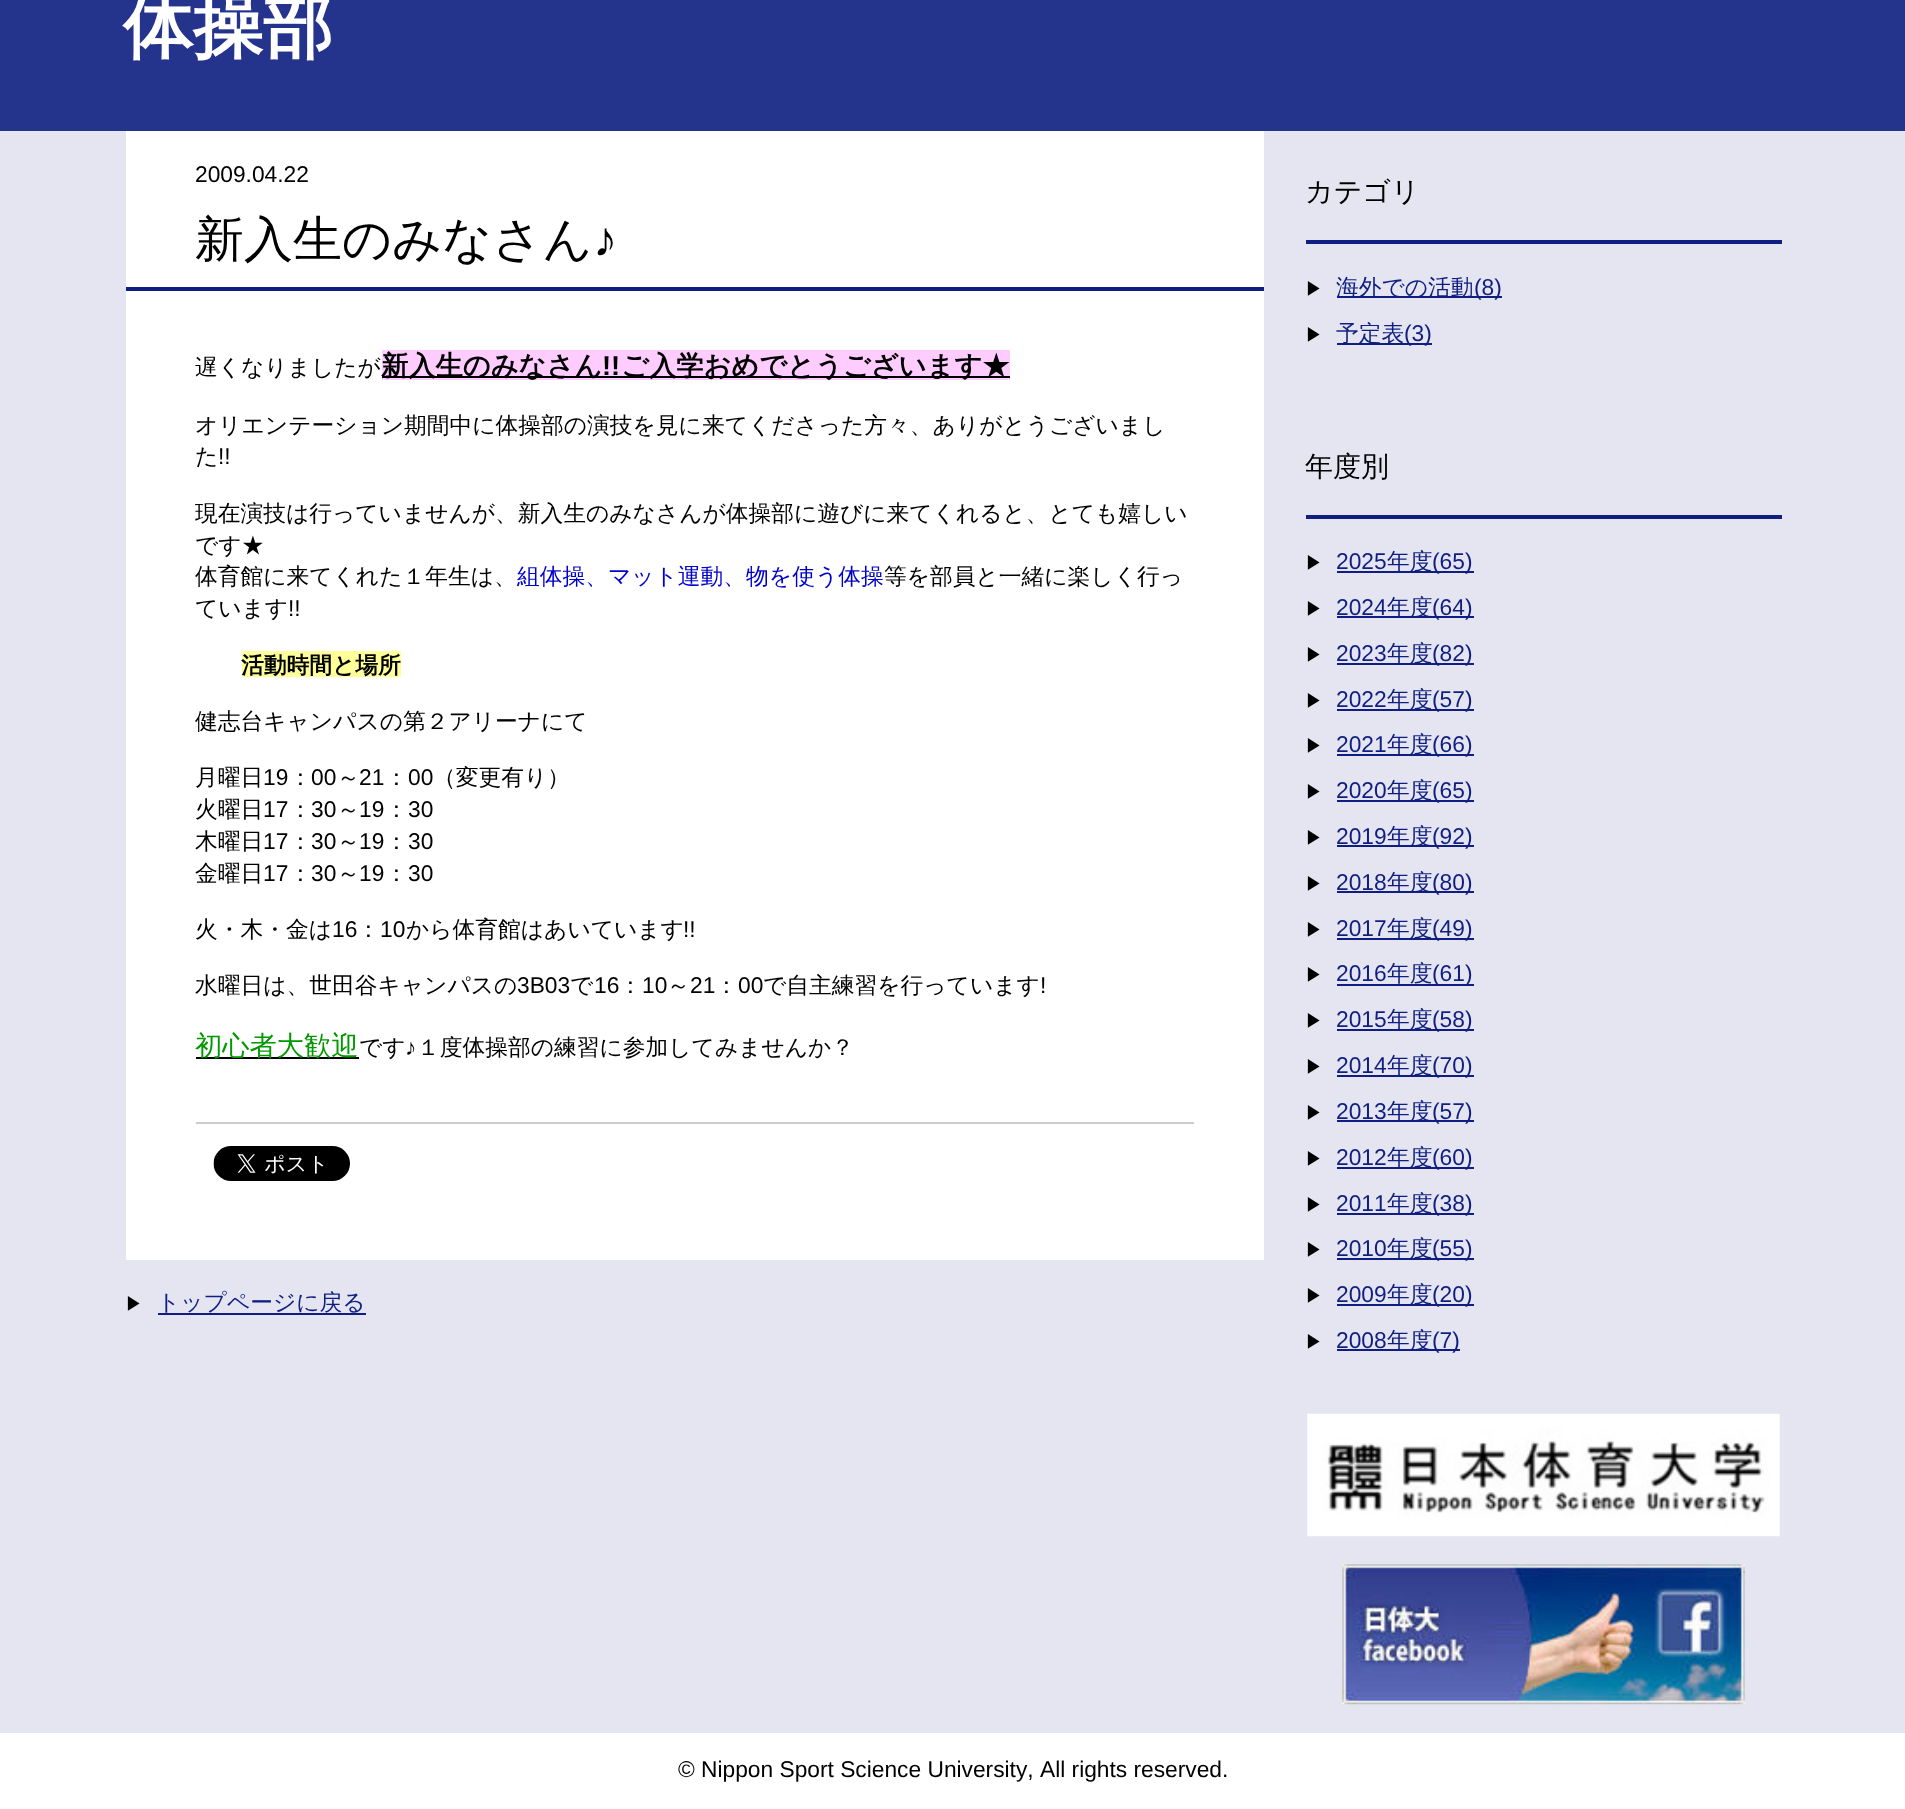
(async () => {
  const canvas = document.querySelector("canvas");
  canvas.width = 1905;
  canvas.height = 1809;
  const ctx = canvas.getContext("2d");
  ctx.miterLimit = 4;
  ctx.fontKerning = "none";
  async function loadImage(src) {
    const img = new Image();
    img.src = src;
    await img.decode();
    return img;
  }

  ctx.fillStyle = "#ffffff";
  ctx.fillRect(0, 0, 1905, 1809);
  for (const [x, y, w, h, color] of [
    [0, 0, 1905, 131, "#24348d"],
    [0, 131, 1905, 1602, "#e4e5f1"],
    [126, 131, 1138, 1129, "#ffffff"],
    [126, 287, 1138, 4, "#0f1e80"],
    [382, 350, 628, 30, "#ffccff"],
    [382, 376, 628, 2, "#000000"],
    [242, 651, 159, 26, "#ffff99"],
    [196, 1057, 163, 2, "#000000"],
    [196, 1122, 998, 2, "#cccccc"],
  ]) {
    ctx.fillStyle = color;
    ctx.fillRect(x, y, w, h);
  }
  ctx.drawImage(await loadImage("img/1.png"), 213, 1146, 137, 35);
  for (const [x, y, w, h, color] of [
    [158, 1313, 208, 2, "#0f1e80"],
    [1306, 240, 476, 4, "#0f1e80"],
    [1337, 296, 165, 2, "#0f1e80"],
    [1337, 343, 95, 2, "#0f1e80"],
    [1306, 515, 476, 4, "#0f1e80"],
    [1337, 571, 137, 2, "#0f1e80"],
    [1337, 616, 137, 2, "#0f1e80"],
    [1337, 663, 137, 2, "#0f1e80"],
    [1337, 709, 137, 2, "#0f1e80"],
    [1337, 754, 137, 2, "#0f1e80"],
    [1337, 800, 137, 2, "#0f1e80"],
    [1337, 845, 137, 2, "#0f1e80"],
    [1337, 891, 137, 2, "#0f1e80"],
    [1337, 938, 137, 2, "#0f1e80"],
    [1337, 984, 137, 2, "#0f1e80"],
    [1337, 1029, 137, 2, "#0f1e80"],
    [1337, 1075, 137, 2, "#0f1e80"],
    [1337, 1120, 137, 2, "#0f1e80"],
    [1337, 1167, 137, 2, "#0f1e80"],
    [1337, 1213, 137, 2, "#0f1e80"],
    [1337, 1258, 137, 2, "#0f1e80"],
    [1337, 1304, 137, 2, "#0f1e80"],
    [1337, 1349, 123, 2, "#0f1e80"],
  ]) {
    ctx.fillStyle = color;
    ctx.fillRect(x, y, w, h);
  }
  ctx.drawImage(await loadImage("img/2.png"), 1307, 1413, 473, 124);
  ctx.drawImage(await loadImage("img/3.png"), 1342, 1564, 403, 141);
  ctx.font = "bold 70px WenQuanYi Zen Hei";
  ctx.fillStyle = "#ffffff";
  ctx.fillText("体操部", 123, 51);
  ctx.font = "22.75px Liberation Sans";
  ctx.fillStyle = "#000000";
  ctx.fillText("2009.04.22", 195, 182);
  ctx.font = "500 49px WenQuanYi Zen Hei";
  ctx.fillText("新入生のみなさん", 195, 256);
  ctx.font = "49px Liberation Sans";
  ctx.fillText("♪", 593, 256);
  ctx.font = "500 22.75px WenQuanYi Zen Hei";
  ctx.fillText("遅くなりましたが", 195, 375);
  ctx.font = "bold 27.25px WenQuanYi Zen Hei";
  ctx.fillText("新入生のみなさん", 381, 375);
  ctx.font = "bold 27.25px Liberation Sans";
  ctx.fillText("!!", 602, 375);
  ctx.font = "bold 27.25px WenQuanYi Zen Hei";
  ctx.fillText("ご入学おめでとうございます★", 621, 375);
  ctx.font = "500 22.75px WenQuanYi Zen Hei";
  ctx.fillText("オリエンテーション期間中に体操部の演技を見に来てくださった方々、ありがとうございまし", 195, 433);
  ctx.fillText("た", 195, 464);
  ctx.font = "22.75px Liberation Sans";
  ctx.fillText("!!", 218, 464);
  ctx.font = "500 22.75px WenQuanYi Zen Hei";
  for (const [text, x, y] of [
    ["現在演技は行っていませんが、新入生のみなさんが体操部に遊びに来てくれると、とても嬉しい", 195, 521],
    ["です★", 195, 553],
    ["体育館に来てくれた１年生は、", 195, 584],
  ]) {
    ctx.fillText(text, x, y);
  }
  ctx.fillStyle = "#0000cc";
  ctx.fillText("組体操、マット運動、物を使う体操", 517, 584);
  ctx.fillStyle = "#000000";
  ctx.fillText("等を部員と一緒に楽しく行っ", 884, 584);
  ctx.fillText("ています", 195, 616);
  ctx.font = "22.75px Liberation Sans";
  ctx.fillText("!!", 288, 616);
  ctx.font = "bold 22.75px WenQuanYi Zen Hei";
  ctx.fillText("活動時間と場所", 241, 673);
  ctx.font = "500 22.75px WenQuanYi Zen Hei";
  ctx.fillText("健志台キャンパスの第２アリーナにて", 195, 729);
  ctx.fillText("月曜日", 195, 785);
  ctx.font = "22.75px Liberation Sans";
  ctx.fillText("19", 263, 785);
  ctx.font = "500 22.75px WenQuanYi Zen Hei";
  ctx.fillText("：", 289, 785);
  ctx.font = "22.75px Liberation Sans";
  ctx.fillText("00", 311, 785);
  ctx.font = "500 22.75px WenQuanYi Zen Hei";
  ctx.fillText("～", 337, 785);
  ctx.font = "22.75px Liberation Sans";
  ctx.fillText("21", 359, 785);
  ctx.font = "500 22.75px WenQuanYi Zen Hei";
  ctx.fillText("：", 385, 785);
  ctx.font = "22.75px Liberation Sans";
  ctx.fillText("00", 408, 785);
  ctx.font = "500 22.75px WenQuanYi Zen Hei";
  ctx.fillText("（変更有り）", 433, 785);
  ctx.fillText("火曜日", 195, 817);
  ctx.font = "22.75px Liberation Sans";
  ctx.fillText("17", 263, 817);
  ctx.font = "500 22.75px WenQuanYi Zen Hei";
  ctx.fillText("：", 289, 817);
  ctx.font = "22.75px Liberation Sans";
  ctx.fillText("30", 311, 817);
  ctx.font = "500 22.75px WenQuanYi Zen Hei";
  ctx.fillText("～", 337, 817);
  ctx.font = "22.75px Liberation Sans";
  ctx.fillText("19", 359, 817);
  ctx.font = "500 22.75px WenQuanYi Zen Hei";
  ctx.fillText("：", 385, 817);
  ctx.font = "22.75px Liberation Sans";
  ctx.fillText("30", 408, 817);
  ctx.font = "500 22.75px WenQuanYi Zen Hei";
  ctx.fillText("木曜日", 195, 849);
  ctx.font = "22.75px Liberation Sans";
  ctx.fillText("17", 263, 849);
  ctx.font = "500 22.75px WenQuanYi Zen Hei";
  ctx.fillText("：", 289, 849);
  ctx.font = "22.75px Liberation Sans";
  ctx.fillText("30", 311, 849);
  ctx.font = "500 22.75px WenQuanYi Zen Hei";
  ctx.fillText("～", 337, 849);
  ctx.font = "22.75px Liberation Sans";
  ctx.fillText("19", 359, 849);
  ctx.font = "500 22.75px WenQuanYi Zen Hei";
  ctx.fillText("：", 385, 849);
  ctx.font = "22.75px Liberation Sans";
  ctx.fillText("30", 408, 849);
  ctx.font = "500 22.75px WenQuanYi Zen Hei";
  ctx.fillText("金曜日", 195, 881);
  ctx.font = "22.75px Liberation Sans";
  ctx.fillText("17", 263, 881);
  ctx.font = "500 22.75px WenQuanYi Zen Hei";
  ctx.fillText("：", 289, 881);
  ctx.font = "22.75px Liberation Sans";
  ctx.fillText("30", 311, 881);
  ctx.font = "500 22.75px WenQuanYi Zen Hei";
  ctx.fillText("～", 337, 881);
  ctx.font = "22.75px Liberation Sans";
  ctx.fillText("19", 359, 881);
  ctx.font = "500 22.75px WenQuanYi Zen Hei";
  ctx.fillText("：", 385, 881);
  ctx.font = "22.75px Liberation Sans";
  ctx.fillText("30", 408, 881);
  ctx.font = "500 22.75px WenQuanYi Zen Hei";
  ctx.fillText("火・木・金は", 195, 937);
  ctx.font = "22.75px Liberation Sans";
  ctx.fillText("16", 332, 937);
  ctx.font = "500 22.75px WenQuanYi Zen Hei";
  ctx.fillText("：", 357, 937);
  ctx.font = "22.75px Liberation Sans";
  ctx.fillText("10", 380, 937);
  ctx.font = "500 22.75px WenQuanYi Zen Hei";
  ctx.fillText("から体育館はあいています", 406, 937);
  ctx.font = "22.75px Liberation Sans";
  ctx.fillText("!!", 683, 937);
  ctx.font = "500 22.75px WenQuanYi Zen Hei";
  ctx.fillText("水曜日は、世田谷キャンパスの", 195, 993);
  ctx.font = "22.75px Liberation Sans";
  ctx.fillText("3B03", 517, 993);
  ctx.font = "500 22.75px WenQuanYi Zen Hei";
  ctx.fillText("で", 570, 993);
  ctx.font = "22.75px Liberation Sans";
  ctx.fillText("16", 594, 993);
  ctx.font = "500 22.75px WenQuanYi Zen Hei";
  ctx.fillText("：", 619, 993);
  ctx.font = "22.75px Liberation Sans";
  ctx.fillText("10", 642, 993);
  ctx.font = "500 22.75px WenQuanYi Zen Hei";
  ctx.fillText("～", 667, 993);
  ctx.font = "22.75px Liberation Sans";
  ctx.fillText("21", 690, 993);
  ctx.font = "500 22.75px WenQuanYi Zen Hei";
  ctx.fillText("：", 715, 993);
  ctx.font = "22.75px Liberation Sans";
  ctx.fillText("00", 738, 993);
  ctx.font = "500 22.75px WenQuanYi Zen Hei";
  ctx.fillText("で自主練習を行っています", 763, 993);
  ctx.font = "22.75px Liberation Sans";
  ctx.fillText("!", 1040, 993);
  ctx.font = "500 27.25px WenQuanYi Zen Hei";
  ctx.fillStyle = "#009900";
  ctx.fillText("初心者大歓迎", 195, 1055);
  ctx.font = "500 22.75px WenQuanYi Zen Hei";
  ctx.fillStyle = "#000000";
  ctx.fillText("です", 359, 1055);
  ctx.font = "22.75px Liberation Sans";
  ctx.fillText("♪", 405, 1055);
  ctx.font = "500 22.75px WenQuanYi Zen Hei";
  ctx.fillText("１度体操部の練習に参加してみませんか？", 417, 1055);
  ctx.font = "500 18px WenQuanYi Zen Hei";
  ctx.fillText("▶︎", 125, 1310);
  ctx.font = "500 22.75px WenQuanYi Zen Hei";
  ctx.fillStyle = "#0f1e80";
  ctx.fillText("トップページに戻る", 157, 1310);
  ctx.font = "500 28px WenQuanYi Zen Hei";
  ctx.fillStyle = "#000000";
  ctx.fillText("カテゴリ", 1305, 201);
  ctx.font = "500 18px WenQuanYi Zen Hei";
  ctx.fillText("▶︎", 1305, 295);
  ctx.font = "500 22.75px WenQuanYi Zen Hei";
  ctx.fillStyle = "#0f1e80";
  ctx.fillText("海外での活動", 1336, 295);
  ctx.font = "22.75px Liberation Sans";
  ctx.fillText("(8)", 1474, 295);
  ctx.font = "500 18px WenQuanYi Zen Hei";
  ctx.fillStyle = "#000000";
  ctx.fillText("▶︎", 1305, 341);
  ctx.font = "500 22.75px WenQuanYi Zen Hei";
  ctx.fillStyle = "#0f1e80";
  ctx.fillText("予定表", 1336, 341);
  ctx.font = "22.75px Liberation Sans";
  ctx.fillText("(3)", 1404, 341);
  ctx.font = "500 28px WenQuanYi Zen Hei";
  ctx.fillStyle = "#000000";
  ctx.fillText("年度別", 1305, 476);
  ctx.font = "500 18px WenQuanYi Zen Hei";
  ctx.fillText("▶︎", 1305, 569);
  ctx.font = "22.75px Liberation Sans";
  ctx.fillStyle = "#0f1e80";
  ctx.fillText("2025", 1336, 569);
  ctx.font = "500 22.75px WenQuanYi Zen Hei";
  ctx.fillText("年度", 1387, 569);
  ctx.font = "22.75px Liberation Sans";
  ctx.fillText("(65)", 1432, 569);
  ctx.font = "500 18px WenQuanYi Zen Hei";
  ctx.fillStyle = "#000000";
  ctx.fillText("▶︎", 1305, 615);
  ctx.font = "22.75px Liberation Sans";
  ctx.fillStyle = "#0f1e80";
  ctx.fillText("2024", 1336, 615);
  ctx.font = "500 22.75px WenQuanYi Zen Hei";
  ctx.fillText("年度", 1387, 615);
  ctx.font = "22.75px Liberation Sans";
  ctx.fillText("(64)", 1432, 615);
  ctx.font = "500 18px WenQuanYi Zen Hei";
  ctx.fillStyle = "#000000";
  ctx.fillText("▶︎", 1305, 661);
  ctx.font = "22.75px Liberation Sans";
  ctx.fillStyle = "#0f1e80";
  ctx.fillText("2023", 1336, 661);
  ctx.font = "500 22.75px WenQuanYi Zen Hei";
  ctx.fillText("年度", 1387, 661);
  ctx.font = "22.75px Liberation Sans";
  ctx.fillText("(82)", 1432, 661);
  ctx.font = "500 18px WenQuanYi Zen Hei";
  ctx.fillStyle = "#000000";
  ctx.fillText("▶︎", 1305, 707);
  ctx.font = "22.75px Liberation Sans";
  ctx.fillStyle = "#0f1e80";
  ctx.fillText("2022", 1336, 707);
  ctx.font = "500 22.75px WenQuanYi Zen Hei";
  ctx.fillText("年度", 1387, 707);
  ctx.font = "22.75px Liberation Sans";
  ctx.fillText("(57)", 1432, 707);
  ctx.font = "500 18px WenQuanYi Zen Hei";
  ctx.fillStyle = "#000000";
  ctx.fillText("▶︎", 1305, 752);
  ctx.font = "22.75px Liberation Sans";
  ctx.fillStyle = "#0f1e80";
  ctx.fillText("2021", 1336, 752);
  ctx.font = "500 22.75px WenQuanYi Zen Hei";
  ctx.fillText("年度", 1387, 752);
  ctx.font = "22.75px Liberation Sans";
  ctx.fillText("(66)", 1432, 752);
  ctx.font = "500 18px WenQuanYi Zen Hei";
  ctx.fillStyle = "#000000";
  ctx.fillText("▶︎", 1305, 798);
  ctx.font = "22.75px Liberation Sans";
  ctx.fillStyle = "#0f1e80";
  ctx.fillText("2020", 1336, 798);
  ctx.font = "500 22.75px WenQuanYi Zen Hei";
  ctx.fillText("年度", 1387, 798);
  ctx.font = "22.75px Liberation Sans";
  ctx.fillText("(65)", 1432, 798);
  ctx.font = "500 18px WenQuanYi Zen Hei";
  ctx.fillStyle = "#000000";
  ctx.fillText("▶︎", 1305, 844);
  ctx.font = "22.75px Liberation Sans";
  ctx.fillStyle = "#0f1e80";
  ctx.fillText("2019", 1336, 844);
  ctx.font = "500 22.75px WenQuanYi Zen Hei";
  ctx.fillText("年度", 1387, 844);
  ctx.font = "22.75px Liberation Sans";
  ctx.fillText("(92)", 1432, 844);
  ctx.font = "500 18px WenQuanYi Zen Hei";
  ctx.fillStyle = "#000000";
  ctx.fillText("▶︎", 1305, 890);
  ctx.font = "22.75px Liberation Sans";
  ctx.fillStyle = "#0f1e80";
  ctx.fillText("2018", 1336, 890);
  ctx.font = "500 22.75px WenQuanYi Zen Hei";
  ctx.fillText("年度", 1387, 890);
  ctx.font = "22.75px Liberation Sans";
  ctx.fillText("(80)", 1432, 890);
  ctx.font = "500 18px WenQuanYi Zen Hei";
  ctx.fillStyle = "#000000";
  ctx.fillText("▶︎", 1305, 936);
  ctx.font = "22.75px Liberation Sans";
  ctx.fillStyle = "#0f1e80";
  ctx.fillText("2017", 1336, 936);
  ctx.font = "500 22.75px WenQuanYi Zen Hei";
  ctx.fillText("年度", 1387, 936);
  ctx.font = "22.75px Liberation Sans";
  ctx.fillText("(49)", 1432, 936);
  ctx.font = "500 18px WenQuanYi Zen Hei";
  ctx.fillStyle = "#000000";
  ctx.fillText("▶︎", 1305, 981);
  ctx.font = "22.75px Liberation Sans";
  ctx.fillStyle = "#0f1e80";
  ctx.fillText("2016", 1336, 981);
  ctx.font = "500 22.75px WenQuanYi Zen Hei";
  ctx.fillText("年度", 1387, 981);
  ctx.font = "22.75px Liberation Sans";
  ctx.fillText("(61)", 1432, 981);
  ctx.font = "500 18px WenQuanYi Zen Hei";
  ctx.fillStyle = "#000000";
  ctx.fillText("▶︎", 1305, 1027);
  ctx.font = "22.75px Liberation Sans";
  ctx.fillStyle = "#0f1e80";
  ctx.fillText("2015", 1336, 1027);
  ctx.font = "500 22.75px WenQuanYi Zen Hei";
  ctx.fillText("年度", 1387, 1027);
  ctx.font = "22.75px Liberation Sans";
  ctx.fillText("(58)", 1432, 1027);
  ctx.font = "500 18px WenQuanYi Zen Hei";
  ctx.fillStyle = "#000000";
  ctx.fillText("▶︎", 1305, 1073);
  ctx.font = "22.75px Liberation Sans";
  ctx.fillStyle = "#0f1e80";
  ctx.fillText("2014", 1336, 1073);
  ctx.font = "500 22.75px WenQuanYi Zen Hei";
  ctx.fillText("年度", 1387, 1073);
  ctx.font = "22.75px Liberation Sans";
  ctx.fillText("(70)", 1432, 1073);
  ctx.font = "500 18px WenQuanYi Zen Hei";
  ctx.fillStyle = "#000000";
  ctx.fillText("▶︎", 1305, 1119);
  ctx.font = "22.75px Liberation Sans";
  ctx.fillStyle = "#0f1e80";
  ctx.fillText("2013", 1336, 1119);
  ctx.font = "500 22.75px WenQuanYi Zen Hei";
  ctx.fillText("年度", 1387, 1119);
  ctx.font = "22.75px Liberation Sans";
  ctx.fillText("(57)", 1432, 1119);
  ctx.font = "500 18px WenQuanYi Zen Hei";
  ctx.fillStyle = "#000000";
  ctx.fillText("▶︎", 1305, 1165);
  ctx.font = "22.75px Liberation Sans";
  ctx.fillStyle = "#0f1e80";
  ctx.fillText("2012", 1336, 1165);
  ctx.font = "500 22.75px WenQuanYi Zen Hei";
  ctx.fillText("年度", 1387, 1165);
  ctx.font = "22.75px Liberation Sans";
  ctx.fillText("(60)", 1432, 1165);
  ctx.font = "500 18px WenQuanYi Zen Hei";
  ctx.fillStyle = "#000000";
  ctx.fillText("▶︎", 1305, 1211);
  ctx.font = "22.75px Liberation Sans";
  ctx.fillStyle = "#0f1e80";
  ctx.fillText("2011", 1336, 1211);
  ctx.font = "500 22.75px WenQuanYi Zen Hei";
  ctx.fillText("年度", 1387, 1211);
  ctx.font = "22.75px Liberation Sans";
  ctx.fillText("(38)", 1432, 1211);
  ctx.font = "500 18px WenQuanYi Zen Hei";
  ctx.fillStyle = "#000000";
  ctx.fillText("▶︎", 1305, 1256);
  ctx.font = "22.75px Liberation Sans";
  ctx.fillStyle = "#0f1e80";
  ctx.fillText("2010", 1336, 1256);
  ctx.font = "500 22.75px WenQuanYi Zen Hei";
  ctx.fillText("年度", 1387, 1256);
  ctx.font = "22.75px Liberation Sans";
  ctx.fillText("(55)", 1432, 1256);
  ctx.font = "500 18px WenQuanYi Zen Hei";
  ctx.fillStyle = "#000000";
  ctx.fillText("▶︎", 1305, 1302);
  ctx.font = "22.75px Liberation Sans";
  ctx.fillStyle = "#0f1e80";
  ctx.fillText("2009", 1336, 1302);
  ctx.font = "500 22.75px WenQuanYi Zen Hei";
  ctx.fillText("年度", 1387, 1302);
  ctx.font = "22.75px Liberation Sans";
  ctx.fillText("(20)", 1432, 1302);
  ctx.font = "500 18px WenQuanYi Zen Hei";
  ctx.fillStyle = "#000000";
  ctx.fillText("▶︎", 1305, 1348);
  ctx.font = "22.75px Liberation Sans";
  ctx.fillStyle = "#0f1e80";
  ctx.fillText("2008", 1336, 1348);
  ctx.font = "500 22.75px WenQuanYi Zen Hei";
  ctx.fillText("年度", 1387, 1348);
  ctx.font = "22.75px Liberation Sans";
  ctx.fillText("(7)", 1432, 1348);
  ctx.fillStyle = "#000000";
  ctx.fillText("© Nippon Sport Science University, All rights reserved.", 678, 1777);
})();
